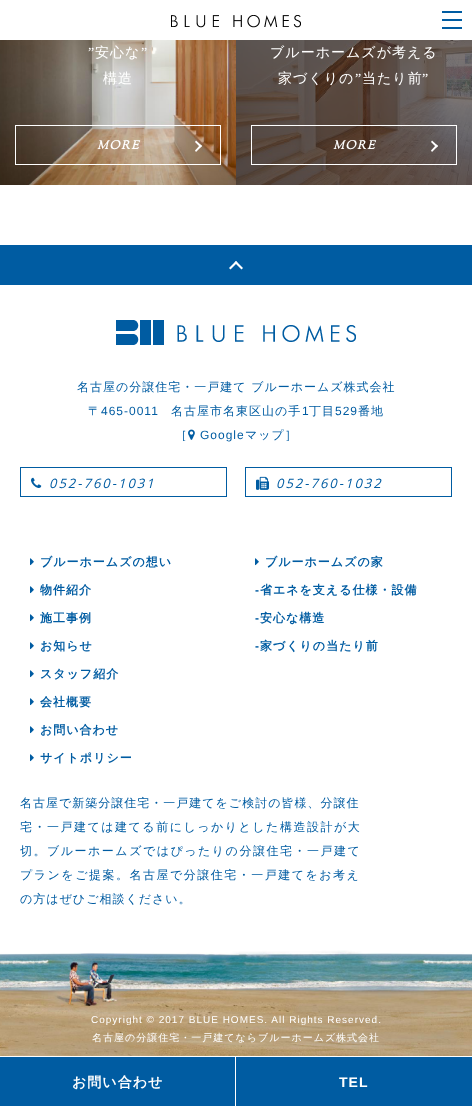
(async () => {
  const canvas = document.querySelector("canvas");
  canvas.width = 472;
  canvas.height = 1106;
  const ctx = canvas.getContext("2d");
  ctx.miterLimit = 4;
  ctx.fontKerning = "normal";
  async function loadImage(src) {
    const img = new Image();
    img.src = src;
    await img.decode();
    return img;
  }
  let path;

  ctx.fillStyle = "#ffffff";
  ctx.fillRect(0, 0, 472, 1106);
  ctx.drawImage(await loadImage("img/1.png"), 171, 15, 130, 13);
  ctx.drawImage(await loadImage("img/2.png"), 442, 11, 20, 18);
  ctx.drawImage(await loadImage("img/3.png"), 0, 40, 236, 145);
  ctx.strokeStyle = "#ffffff";
  ctx.strokeRect(15.5, 125.5, 205, 39);
  path = new Path2D("M196 140.5L202 146L200.5 147.5L195 142Z");
  ctx.fill(path);
  path = new Path2D("M200.5 144.5L202 146L196 152L195 150.5Z");
  ctx.fill(path);
  ctx.drawImage(await loadImage("img/4.png"), 236, 40, 236, 145);
  ctx.strokeRect(251.5, 125.5, 205, 39);
  path = new Path2D("M432 140.5L438 146L436.5 147.5L431 142Z");
  ctx.fill(path);
  path = new Path2D("M436.5 144.5L438 146L432 152L431 150.5Z");
  ctx.fill(path);
  ctx.fillStyle = "#005ca2";
  ctx.fillRect(0, 245, 472, 40);
  ctx.fillStyle = "#ffffff";
  path = new Path2D("M236 261L243 268L241.5 269.5L234.5 262.5Z");
  ctx.fill(path);
  path = new Path2D("M236 261L237.5 262.5L230.5 269.5L229 268Z");
  ctx.fill(path);
  ctx.drawImage(await loadImage("img/5.png"), 116, 320, 240, 25);
  ctx.drawImage(await loadImage("img/6.png"), 188, 429, 7, 11);
  ctx.strokeStyle = "#005ca2";
  ctx.strokeRect(20.5, 467.5, 206, 29);
  ctx.drawImage(await loadImage("img/7.png"), 31, 477, 11, 11);
  ctx.strokeRect(245.5, 467.5, 206, 29);
  ctx.drawImage(await loadImage("img/8.png"), 256, 476, 13, 14);
  ctx.drawImage(await loadImage("img/9.png"), 30, 558, 4, 8);
  ctx.drawImage(await loadImage("img/9.png"), 30, 586, 4, 8);
  ctx.drawImage(await loadImage("img/9.png"), 30, 614, 4, 8);
  ctx.drawImage(await loadImage("img/9.png"), 30, 642, 4, 8);
  ctx.drawImage(await loadImage("img/9.png"), 30, 670, 4, 8);
  ctx.drawImage(await loadImage("img/9.png"), 255, 558, 4, 8);
  ctx.drawImage(await loadImage("img/9.png"), 30, 698, 4, 8);
  ctx.drawImage(await loadImage("img/9.png"), 30, 726, 4, 8);
  ctx.drawImage(await loadImage("img/9.png"), 30, 754, 4, 8);
  ctx.drawImage(await loadImage("img/10.png"), 0, 950, 472, 106);
  ctx.fillStyle = "#005ca2";
  ctx.fillRect(0, 1057, 472, 49);
  ctx.fillStyle = "#ffffff";
  ctx.fillRect(235, 1057, 1, 49);
  ctx.letterSpacing = "1px";
  ctx.font = "14px Liberation Serif";
  ctx.fillText("”", 88, 57);
  ctx.font = "500 14px WenQuanYi Zen Hei";
  ctx.fillText("安心な", 95, 57);
  ctx.font = "14px Liberation Serif";
  ctx.fillText("”", 141, 57);
  ctx.font = "500 14px WenQuanYi Zen Hei";
  ctx.fillText("構造", 103, 83);
  ctx.letterSpacing = "1.5px";
  ctx.font = "italic bold 12px Sorts Mill Goudy";
  ctx.fillText("MORE", 97, 149);
  ctx.letterSpacing = "1px";
  ctx.font = "500 14px WenQuanYi Zen Hei";
  ctx.fillText("ブルーホームズが考える", 270, 57);
  ctx.fillText("家づくりの", 278, 83);
  ctx.font = "14px Liberation Serif";
  ctx.fillText("”", 355, 83);
  ctx.font = "500 14px WenQuanYi Zen Hei";
  ctx.fillText("当たり前", 362, 83);
  ctx.font = "14px Liberation Serif";
  ctx.fillText("”", 422, 83);
  ctx.letterSpacing = "1.5px";
  ctx.font = "italic bold 12px Sorts Mill Goudy";
  ctx.fillText("MORE", 333, 149);
  ctx.letterSpacing = "1px";
  ctx.font = "500 12px WenQuanYi Zen Hei";
  ctx.fillStyle = "#005ca2";
  ctx.fillText("名古屋の分譲住宅・一戸建て ブルーホームズ株式会社", 77, 391);
  ctx.fillText("〒", 88, 415);
  ctx.font = "12px Liberation Sans";
  ctx.fillText("465-0011", 101, 415);
  ctx.font = "500 12px WenQuanYi Zen Hei";
  ctx.fillText("名古屋市名東区山の手", 171, 415);
  ctx.font = "12px Liberation Sans";
  ctx.fillText("1", 302, 415);
  ctx.font = "500 12px WenQuanYi Zen Hei";
  ctx.fillText("丁目", 309, 415);
  ctx.font = "12px Liberation Sans";
  ctx.fillText("529", 335, 415);
  ctx.font = "500 12px WenQuanYi Zen Hei";
  ctx.fillText("番地", 358, 415);
  ctx.fillText("［", 175, 439);
  ctx.font = "12px Liberation Sans";
  ctx.fillText("Google", 200, 439);
  ctx.font = "500 12px WenQuanYi Zen Hei";
  ctx.fillText("マップ］", 245, 439);
  ctx.letterSpacing = "2px";
  ctx.font = "italic 13px Open Sans";
  ctx.fillText("052-760-1031", 49, 488);
  ctx.fillText("052-760-1032", 276, 488);
  ctx.letterSpacing = "1px";
  ctx.font = "bold 12px WenQuanYi Zen Hei";
  for (const [text, x, y] of [
    ["ブルーホームズの想い", 40, 566],
    ["物件紹介", 40, 594],
    ["施工事例", 40, 622],
    ["お知らせ", 40, 650],
    ["スタッフ紹介", 40, 678],
    ["ブルーホームズの家", 265, 566],
  ]) {
    ctx.fillText(text, x, y);
  }
  ctx.font = "bold 12px Liberation Sans";
  ctx.fillText("-", 255, 594);
  ctx.font = "bold 12px WenQuanYi Zen Hei";
  ctx.fillText("省エネを支える仕様・設備", 260, 594);
  ctx.font = "bold 12px Liberation Sans";
  ctx.fillText("-", 255, 622);
  ctx.font = "bold 12px WenQuanYi Zen Hei";
  ctx.fillText("安心な構造", 260, 622);
  ctx.font = "bold 12px Liberation Sans";
  ctx.fillText("-", 255, 650);
  ctx.font = "bold 12px WenQuanYi Zen Hei";
  for (const [text, x, y] of [
    ["家づくりの当たり前", 260, 650],
    ["会社概要", 40, 706],
    ["お問い合わせ", 40, 734],
    ["サイトポリシー", 40, 762],
  ]) {
    ctx.fillText(text, x, y);
  }
  ctx.font = "500 12px WenQuanYi Zen Hei";
  ctx.fillText("名古屋で新築分譲住宅・一戸建てをご検討の皆様、分譲住", 20, 807);
  ctx.letterSpacing = "1.5px";
  for (const [text, x, y] of [
    ["宅・一戸建ては建てる前にしっかりとした構造設計が大", 20, 831],
    ["切。ブルーホームズではぴったりの分譲住宅・一戸建て", 20, 855],
    ["プランをご提案。名古屋で分譲住宅・一戸建てをお考え", 20, 879],
  ]) {
    ctx.fillText(text, x, y);
  }
  ctx.letterSpacing = "1px";
  ctx.fillText("の方はぜひご相談ください。", 20, 903);
  ctx.font = "10px Liberation Sans";
  ctx.fillStyle = "#ffffff";
  ctx.fillText("Copyright © 2017 BLUE HOMES. All Rights Reserved.", 91, 1023);
  ctx.font = "500 10px WenQuanYi Zen Hei";
  ctx.fillText("名古屋の分譲住宅・一戸建てならブルーホームズ株式会社", 92, 1041);
  ctx.font = "bold 14px WenQuanYi Zen Hei";
  ctx.fillText("お問い合わせ", 72, 1087);
  ctx.font = "bold 14px Liberation Sans";
  ctx.fillText("TEL", 339, 1087);
})();
